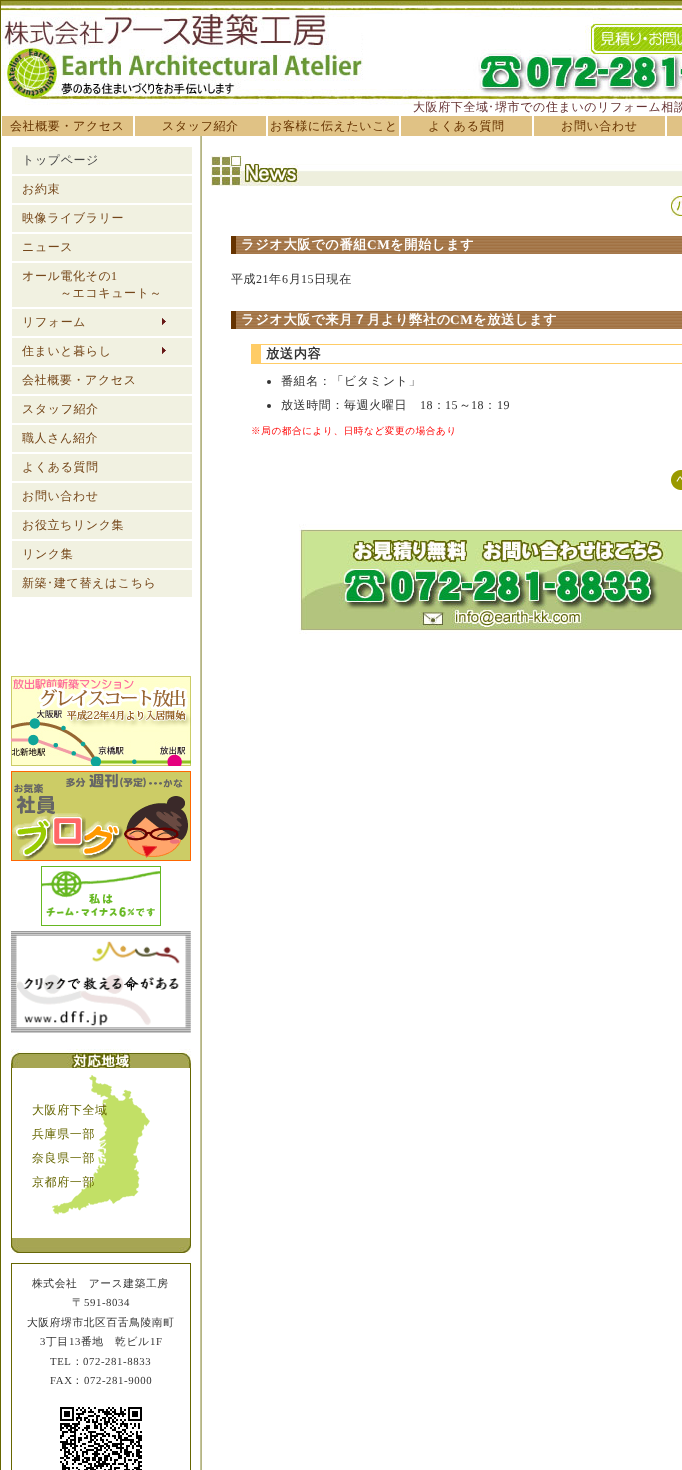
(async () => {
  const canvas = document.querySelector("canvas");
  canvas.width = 682;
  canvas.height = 1470;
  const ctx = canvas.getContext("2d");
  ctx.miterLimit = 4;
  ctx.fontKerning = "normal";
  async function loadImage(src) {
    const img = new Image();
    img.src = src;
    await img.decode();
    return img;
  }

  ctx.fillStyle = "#ffffff";
  ctx.fillRect(0, 0, 682, 1470);
  ctx.drawImage(await loadImage("img/1.png"), 1, 116, 681, 1354);
  ctx.strokeStyle = "#666600";
  ctx.strokeRect(0.5, 0.5, 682, 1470);
  ctx.drawImage(await loadImage("img/2.png"), 1, 1, 681, 115);
  for (const [x, y, w, h, color] of [
    [2, 116, 131, 20, "#e0c285"],
    [135, 116, 131, 20, "#e0c285"],
    [268, 116, 131, 20, "#e0c285"],
    [401, 116, 131, 20, "#e0c285"],
    [534, 116, 131, 20, "#e0c285"],
    [667, 116, 15, 20, "#e0c285"],
    [12, 147, 180, 27, "#f1f1e1"],
    [12, 176, 180, 27, "#f1f1e1"],
    [12, 205, 180, 27, "#f1f1e1"],
    [12, 234, 180, 27, "#f1f1e1"],
    [12, 263, 180, 44, "#f1f1e1"],
    [12, 309, 180, 27, "#f1f1e1"],
  ]) {
    ctx.fillStyle = color;
    ctx.fillRect(x, y, w, h);
  }
  ctx.drawImage(await loadImage("img/3.png"), 162, 318, 4, 7);
  ctx.fillRect(12, 338, 180, 27);
  ctx.drawImage(await loadImage("img/3.png"), 162, 347, 4, 7);
  for (const [x, y, w, h, color] of [
    [12, 367, 180, 27, "#f1f1e1"],
    [12, 396, 180, 27, "#f1f1e1"],
    [12, 425, 180, 27, "#f1f1e1"],
    [12, 454, 180, 27, "#f1f1e1"],
    [12, 483, 180, 27, "#f1f1e1"],
    [12, 512, 180, 27, "#f1f1e1"],
    [12, 541, 180, 27, "#f1f1e1"],
    [12, 570, 180, 27, "#f1f1e1"],
  ]) {
    ctx.fillStyle = color;
    ctx.fillRect(x, y, w, h);
  }
  ctx.drawImage(await loadImage("img/4.png"), 11, 676, 180, 90);
  ctx.drawImage(await loadImage("img/5.png"), 11, 771, 180, 90);
  ctx.drawImage(await loadImage("img/6.png"), 41, 866, 120, 60);
  ctx.drawImage(await loadImage("img/7.png"), 11, 931, 180, 102);
  ctx.drawImage(await loadImage("img/8.png"), 11, 1049, 180, 19);
  ctx.drawImage(await loadImage("img/9.png"), 52, 1075, 98, 140);
  ctx.fillStyle = "#666600";
  ctx.fillRect(190, 1068, 1, 170);
  ctx.fillRect(11, 1068, 1, 170);
  ctx.drawImage(await loadImage("img/10.png"), 11, 1238, 180, 15);
  ctx.strokeRect(11.5, 1263.5, 179, 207);
  ctx.drawImage(await loadImage("img/11.png"), 60, 1407, 82, 63);
  ctx.drawImage(await loadImage("img/12.png"), 211, 156, 471, 30);
  ctx.drawImage(await loadImage("img/13.png"), 671, 196, 11, 20);
  ctx.drawImage(await loadImage("img/14.png"), 236, 236, 446, 18);
  ctx.fillStyle = "#663300";
  ctx.fillRect(231, 236, 5, 18);
  ctx.drawImage(await loadImage("img/14.png"), 236, 311, 446, 18);
  for (const [x, y, w, h, color] of [
    [231, 311, 5, 18, "#663300"],
    [261, 344, 421, 1, "#ffcc66"],
    [261, 363, 421, 1, "#ffcc66"],
    [251, 344, 10, 20, "#ffcc66"],
  ]) {
    ctx.fillStyle = color;
    ctx.fillRect(x, y, w, h);
  }
  ctx.fillStyle = "#333333";
  ctx.beginPath();
  ctx.arc(269, 382, 2, 0, Math.PI * 2);
  ctx.fill();
  ctx.beginPath();
  ctx.arc(269, 406, 2, 0, Math.PI * 2);
  ctx.fill();
  ctx.drawImage(await loadImage("img/15.png"), 671, 470, 11, 20);
  ctx.drawImage(await loadImage("img/16.png"), 299, 524, 383, 110);
  ctx.letterSpacing = "0.6px";
  ctx.font = "500 12px WenQuanYi Zen Hei";
  ctx.fillStyle = "#663333";
  ctx.fillText("大阪府下全域", 413, 111);
  ctx.font = "12px IPAPGothic";
  ctx.fillText("･", 488, 111);
  ctx.font = "500 12px WenQuanYi Zen Hei";
  ctx.fillText("堺市での住まいのリフォーム相談", 495, 111);
  ctx.fillStyle = "#663300";
  for (const [text, x, y] of [
    ["会社概要・アクセス", 10, 130],
    ["スタッフ紹介", 162, 130],
    ["お客様に伝えたいこと", 270, 130],
    ["よくある質問", 428, 130],
    ["お問い合わせ", 561, 130],
  ]) {
    ctx.fillText(text, x, y);
  }
  ctx.fillStyle = "#474747";
  ctx.fillText("トップページ", 22, 164);
  ctx.fillStyle = "#75471a";
  for (const [text, x, y] of [
    ["お約束", 22, 193],
    ["映像ライブラリー", 22, 222],
    ["ニュース", 22, 251],
    ["オール電化その", 22, 280],
  ]) {
    ctx.fillText(text, x, y);
  }
  ctx.font = "12px Liberation Serif";
  ctx.fillText("1", 111, 280);
  ctx.font = "500 12px WenQuanYi Zen Hei";
  for (const [text, x, y] of [
    ["～エコキュート～", 60, 297],
    ["リフォーム", 22, 326],
    ["住まいと暮らし", 22, 355],
    ["会社概要・アクセス", 22, 384],
    ["スタッフ紹介", 22, 413],
    ["職人さん紹介", 22, 442],
    ["よくある質問", 22, 471],
    ["お問い合わせ", 22, 500],
    ["お役立ちリンク集", 22, 529],
    ["リンク集", 22, 558],
    ["新築", 22, 587],
  ]) {
    ctx.fillText(text, x, y);
  }
  ctx.font = "12px IPAPGothic";
  ctx.fillText("･", 47, 587);
  ctx.font = "500 12px WenQuanYi Zen Hei";
  ctx.fillText("建て替えはこちら", 54, 587);
  ctx.fillStyle = "#666600";
  for (const [text, x, y] of [
    ["大阪府下全域", 32, 1114],
    ["兵庫県一部", 32, 1138],
    ["奈良県一部", 32, 1162],
    ["京都府一部", 32, 1186],
  ]) {
    ctx.fillText(text, x, y);
  }
  ctx.font = "500 10.75px WenQuanYi Zen Hei";
  ctx.fillStyle = "#333333";
  ctx.fillText("株式会社　アース建築工房", 32, 1287);
  ctx.fillText("〒", 72, 1306);
  ctx.font = "10.75px Liberation Serif";
  ctx.fillText("591-8034", 84, 1306);
  ctx.font = "500 10.75px WenQuanYi Zen Hei";
  ctx.fillText("大阪府堺市北区百舌鳥陵南町", 27, 1326);
  ctx.font = "10.75px Liberation Serif";
  ctx.fillText("3", 40, 1345);
  ctx.font = "500 10.75px WenQuanYi Zen Hei";
  ctx.fillText("丁目", 46, 1345);
  ctx.font = "10.75px Liberation Serif";
  ctx.fillText("13", 69, 1345);
  ctx.font = "500 10.75px WenQuanYi Zen Hei";
  ctx.fillText("番地　乾ビル", 81, 1345);
  ctx.font = "10.75px Liberation Serif";
  ctx.fillText("1F", 150, 1345);
  ctx.fillText("TEL", 50, 1365);
  ctx.font = "500 10.75px WenQuanYi Zen Hei";
  ctx.fillText("：", 72, 1365);
  ctx.font = "10.75px Liberation Serif";
  ctx.fillText("072-281-8833", 83, 1365);
  ctx.fillText("FAX", 50, 1384);
  ctx.font = "500 10.75px WenQuanYi Zen Hei";
  ctx.fillText("：", 72, 1384);
  ctx.font = "10.75px Liberation Serif";
  ctx.fillText("072-281-9000", 84, 1384);
  ctx.font = "bold 13.25px WenQuanYi Zen Hei";
  ctx.fillStyle = "#ffffff";
  ctx.fillText("ラジオ大阪での番組", 241, 249);
  ctx.font = "bold 13.25px Liberation Serif";
  ctx.fillText("CM", 367, 249);
  ctx.font = "bold 13.25px WenQuanYi Zen Hei";
  ctx.fillText("を開始します", 390, 249);
  ctx.font = "500 12px WenQuanYi Zen Hei";
  ctx.fillStyle = "#333333";
  ctx.fillText("平成", 231, 283);
  ctx.font = "12px Liberation Serif";
  ctx.fillText("21", 256, 283);
  ctx.font = "500 12px WenQuanYi Zen Hei";
  ctx.fillText("年", 269, 283);
  ctx.font = "12px Liberation Serif";
  ctx.fillText("6", 282, 283);
  ctx.font = "500 12px WenQuanYi Zen Hei";
  ctx.fillText("月", 289, 283);
  ctx.font = "12px Liberation Serif";
  ctx.fillText("15", 301, 283);
  ctx.font = "500 12px WenQuanYi Zen Hei";
  ctx.fillText("日現在", 314, 283);
  ctx.font = "bold 13.25px WenQuanYi Zen Hei";
  ctx.fillStyle = "#ffffff";
  ctx.fillText("ラジオ大阪で来月７月より弊社の", 241, 324);
  ctx.font = "bold 13.25px Liberation Serif";
  ctx.fillText("CM", 450, 324);
  ctx.font = "bold 13.25px WenQuanYi Zen Hei";
  ctx.fillText("を放送します", 473, 324);
  ctx.fillStyle = "#333333";
  ctx.fillText("放送内容", 266, 358);
  ctx.font = "500 12px WenQuanYi Zen Hei";
  ctx.fillText("番組名：「ビタミント」", 281, 385);
  ctx.fillText("放送時間：毎週火曜日", 281, 409);
  ctx.font = "12px Liberation Serif";
  ctx.fillText("18", 420, 409);
  ctx.font = "500 12px WenQuanYi Zen Hei";
  ctx.fillText("：", 433, 409);
  ctx.font = "12px Liberation Serif";
  ctx.fillText("15", 445, 409);
  ctx.font = "500 12px WenQuanYi Zen Hei";
  ctx.fillText("～", 459, 409);
  ctx.font = "12px Liberation Serif";
  ctx.fillText("18", 471, 409);
  ctx.font = "500 12px WenQuanYi Zen Hei";
  ctx.fillText("：", 484, 409);
  ctx.font = "12px Liberation Serif";
  ctx.fillText("19", 497, 409);
  ctx.font = "500 9.6px WenQuanYi Zen Hei";
  ctx.fillStyle = "#ff0000";
  ctx.fillText("※局の都合により、日時など変更の場合あり", 251, 434);
})();
